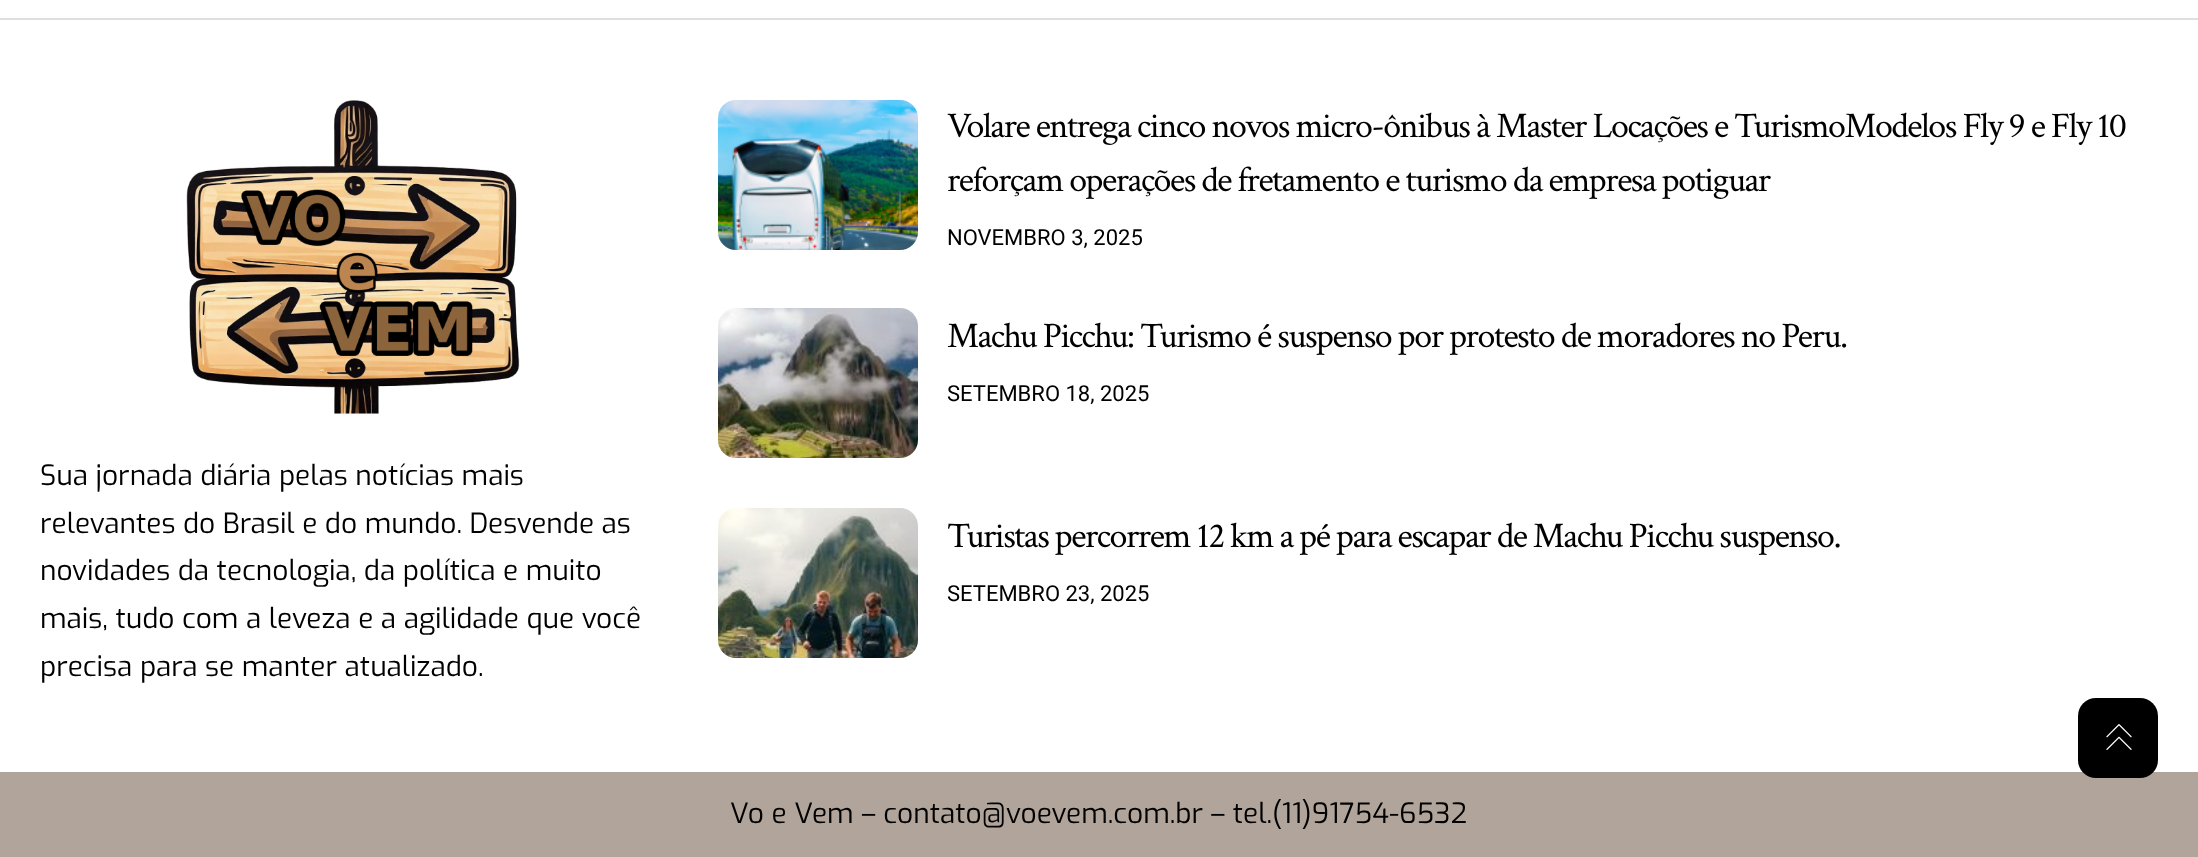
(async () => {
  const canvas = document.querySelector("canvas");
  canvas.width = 2198;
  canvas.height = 857;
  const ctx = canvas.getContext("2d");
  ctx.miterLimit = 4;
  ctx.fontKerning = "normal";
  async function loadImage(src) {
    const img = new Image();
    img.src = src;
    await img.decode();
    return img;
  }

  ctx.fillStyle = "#ffffff";
  ctx.fillRect(0, 0, 2198, 857);
  ctx.fillStyle = "#dfdfdf";
  ctx.fillRect(0, 18, 2198, 2);
  ctx.drawImage(await loadImage("img/1.png"), 186, 100, 334, 314);
  ctx.drawImage(await loadImage("img/2.png"), 718, 100, 200, 150);
  ctx.drawImage(await loadImage("img/3.png"), 718, 308, 200, 150);
  ctx.drawImage(await loadImage("img/4.png"), 718, 508, 200, 150);
  ctx.fillStyle = "#b1a49b";
  ctx.fillRect(0, 772, 2198, 85);
  ctx.fillStyle = "#000000";
  ctx.beginPath();
  ctx.roundRect(2078, 698, 80, 80, 18);
  ctx.fill();
  ctx.drawImage(await loadImage("img/5.png"), 2106, 724, 26, 26);
  ctx.font = "28px Exo";
  for (const [text, x, y] of [
    ["Sua jornada diária pelas notícias mais", 40, 485],
    ["relevantes do Brasil e do mundo. Desvende as", 40, 533],
    ["novidades da tecnologia, da política e muito", 40, 580],
    ["mais, tudo com a leveza e a agilidade que você", 40, 628],
    ["precisa para se manter atualizado.", 40, 676],
  ]) {
    ctx.fillText(text, x, y);
  }
  ctx.letterSpacing = "-1.5px";
  ctx.font = "36px Crimson Text";
  ctx.fillText("Volare entrega cinco novos micro-ônibus à Master Locações e TurismoModelos Fly 9 e Fly 10", 947, 137);
  ctx.fillText("reforçam operações de fretamento e turismo da empresa potiguar", 947, 191);
  ctx.letterSpacing = "0px";
  ctx.font = "22px Roboto";
  ctx.fillText("NOVEMBRO 3, 2025", 947, 245);
  ctx.letterSpacing = "-1.5px";
  ctx.font = "36px Crimson Text";
  ctx.fillText("Machu Picchu: Turismo é suspenso por protesto de moradores no Peru.", 947, 347);
  ctx.letterSpacing = "0px";
  ctx.font = "22px Roboto";
  ctx.fillText("SETEMBRO 18, 2025", 947, 401);
  ctx.letterSpacing = "-1.5px";
  ctx.font = "36px Crimson Text";
  ctx.fillText("Turistas percorrem 12 km a pé para escapar de Machu Picchu suspenso.", 947, 547);
  ctx.letterSpacing = "0px";
  ctx.font = "22px Roboto";
  ctx.fillText("SETEMBRO 23, 2025", 947, 601);
  ctx.font = "28px Exo";
  ctx.fillText("Vo e Vem – contato@voevem.com.br – tel.(11)91754-6532", 730, 823);
})();
